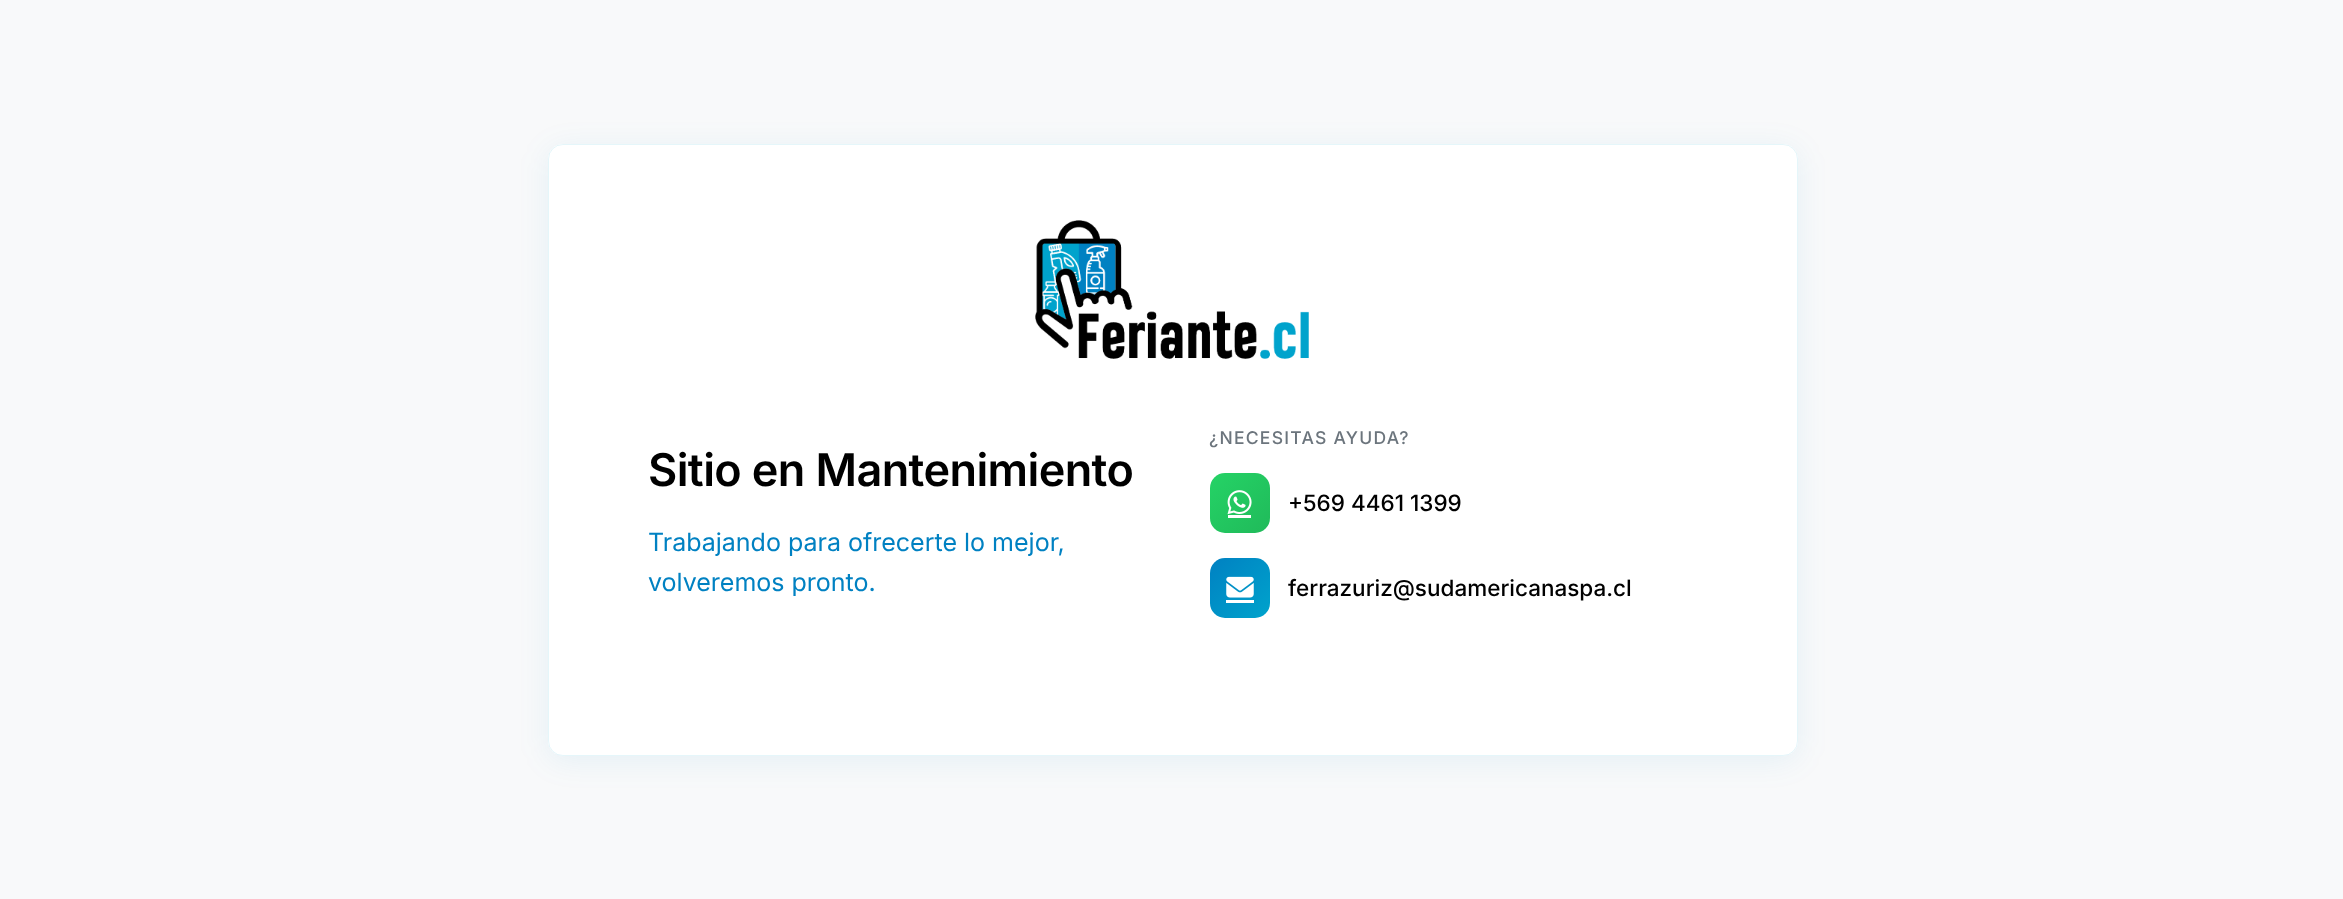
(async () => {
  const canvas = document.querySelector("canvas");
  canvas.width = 2343;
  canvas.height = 899;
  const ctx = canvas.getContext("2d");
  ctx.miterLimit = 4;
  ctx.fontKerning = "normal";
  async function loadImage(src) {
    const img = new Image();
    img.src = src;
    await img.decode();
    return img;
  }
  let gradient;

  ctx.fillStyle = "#f8f9fa";
  ctx.fillRect(0, 0, 2343, 899);
  ctx.fillStyle = "rgba(0, 129, 194, 0.08)";
  ctx.filter = "blur(15px)";
  ctx.beginPath();
  ctx.roundRect(548, 149, 1250, 612, 15);
  ctx.fill();
  ctx.filter = "none";
  ctx.fillStyle = "#ffffff";
  ctx.beginPath();
  ctx.roundRect(548, 144, 1250, 612, 15);
  ctx.fill();
  ctx.beginPath();
  ctx.roundRect(548.5, 144.5, 1249, 611, 14.5);
  ctx.strokeStyle = "rgba(0, 163, 204, 0.1)";
  ctx.stroke();
  ctx.drawImage(await loadImage("img/1.png"), 1035, 220, 274, 139);
  gradient = ctx.createLinearGradient(1210, 473, 1270, 533);
  gradient.addColorStop(0, "#25d366");
  gradient.addColorStop(1, "#20ba5a");
  ctx.fillStyle = gradient;
  ctx.beginPath();
  ctx.roundRect(1210, 473, 60, 60, 15);
  ctx.fill();
  ctx.drawImage(await loadImage("img/2.png"), 1227, 490, 25, 25);
  ctx.fillStyle = "#ffffff";
  ctx.fillRect(1228, 515, 23, 3);
  gradient = ctx.createLinearGradient(1210, 558, 1270, 618);
  gradient.addColorStop(0, "#0081c2");
  gradient.addColorStop(1, "#00a3cc");
  ctx.fillStyle = gradient;
  ctx.beginPath();
  ctx.roundRect(1210, 558, 60, 60, 15);
  ctx.fill();
  ctx.drawImage(await loadImage("img/3.png"), 1226, 576, 28, 22);
  ctx.fillStyle = "#ffffff";
  ctx.fillRect(1226, 600, 28, 3);
  ctx.letterSpacing = "-0.6px";
  ctx.font = "600 45px Inter";
  ctx.fillStyle = "#000000";
  ctx.fillText("Sitio en Mantenimiento", 648, 486);
  ctx.letterSpacing = "0px";
  ctx.font = "25px Inter";
  ctx.fillStyle = "#0081c2";
  ctx.fillText("Trabajando para ofrecerte lo mejor,", 648, 551);
  ctx.fillText("volveremos pronto.", 648, 591);
  ctx.letterSpacing = "1.25px";
  ctx.font = "500 17.5px Inter";
  ctx.fillStyle = "#6c757d";
  ctx.fillText("¿NECESITAS AYUDA?", 1209, 444);
  ctx.letterSpacing = "0px";
  ctx.font = "500 22.5px Inter";
  ctx.fillStyle = "#000000";
  ctx.fillText("+569 4461 1399", 1288, 511);
  ctx.fillText("ferrazuriz@sudamericanaspa.cl", 1288, 596);
})();
